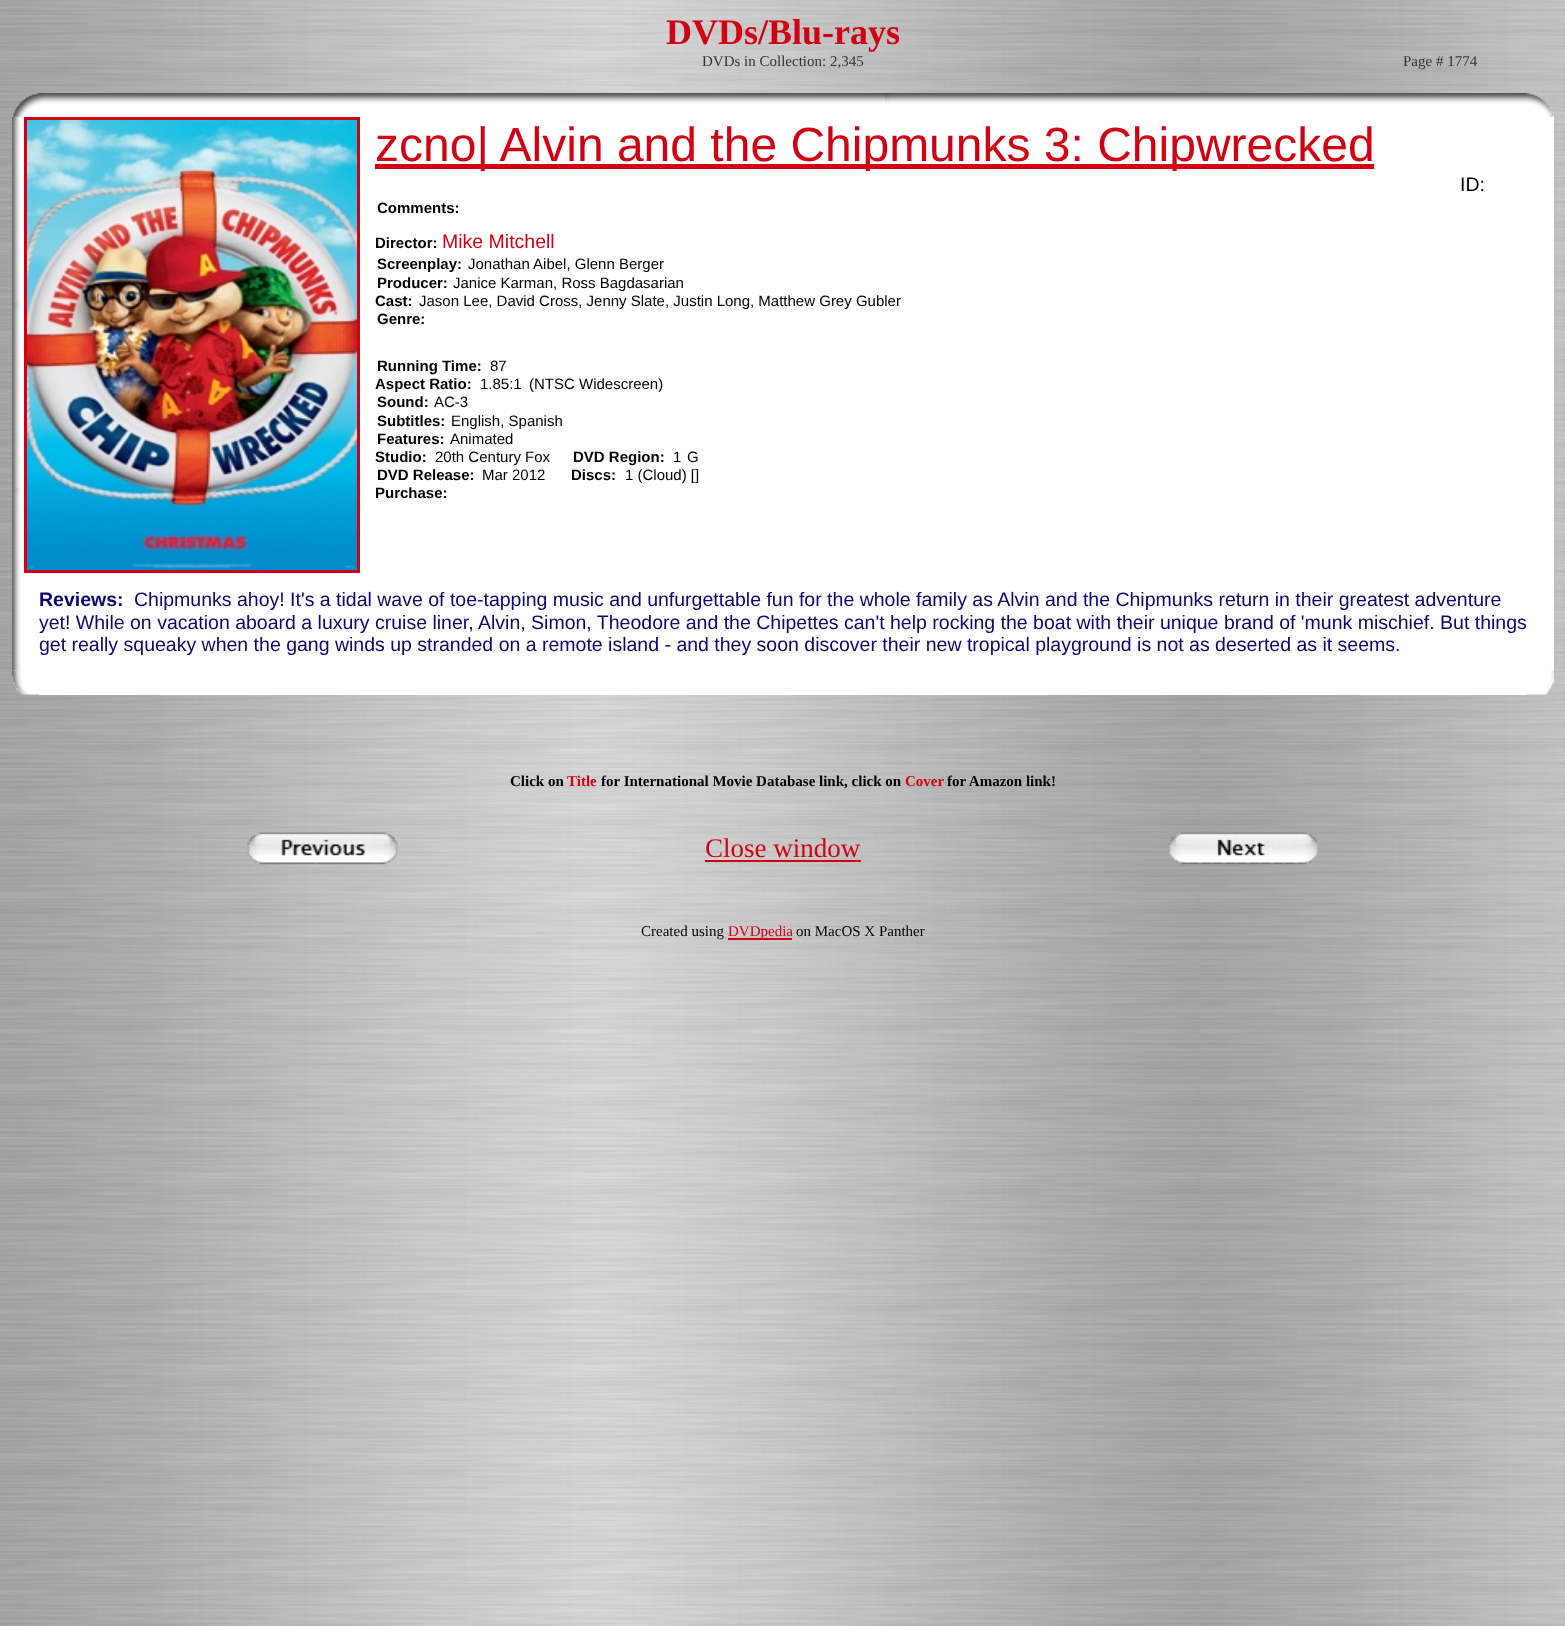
(async () => {
  const canvas = document.querySelector("canvas");
  canvas.width = 1565;
  canvas.height = 1626;
  const ctx = canvas.getContext("2d");
  ctx.miterLimit = 4;
  ctx.fontKerning = "normal";
  async function loadImage(src) {
    const img = new Image();
    img.src = src;
    await img.decode();
    return img;
  }

  ctx.fillStyle = "#ffffff";
  ctx.fillRect(0, 0, 1565, 1626);
  ctx.drawImage(await loadImage("img/1.png"), 0, 0, 1565, 1626);
  ctx.drawImage(await loadImage("img/2.png"), 13, 93, 26, 24);
  ctx.drawImage(await loadImage("img/3.png"), 39, 93, 1488, 24);
  ctx.drawImage(await loadImage("img/4.png"), 1527, 93, 27, 24);
  ctx.fillRect(12, 117, 1542, 554);
  ctx.drawImage(await loadImage("img/5.png"), 12, 117, 9, 554);
  ctx.strokeStyle = "#d10013";
  ctx.lineWidth = 3;
  ctx.strokeRect(25.5, 118.5, 333, 453);
  ctx.drawImage(await loadImage("img/6.png"), 27, 120, 330, 450);
  ctx.fillStyle = "#d10013";
  ctx.fillRect(375, 164, 999, 5);
  ctx.drawImage(await loadImage("img/7.png"), 12, 670, 27, 25);
  ctx.fillStyle = "#ffffff";
  ctx.fillRect(39, 671, 1488, 24);
  ctx.drawImage(await loadImage("img/8.png"), 1527, 670, 27, 25);
  ctx.drawImage(await loadImage("img/9.png"), 247, 832, 151, 33);
  ctx.fillStyle = "#d10013";
  ctx.fillRect(705, 860, 156, 2);
  ctx.drawImage(await loadImage("img/10.png"), 1168, 832, 151, 33);
  ctx.fillRect(728, 938, 64, 2);
  ctx.font = "bold 36px Liberation Serif";
  ctx.fillText("DVDs/Blu-rays", 666, 44);
  ctx.font = "15px Liberation Serif";
  ctx.fillStyle = "#333333";
  ctx.fillText("DVDs in Collection: 2,345", 702, 66);
  ctx.fillText("Page # 1774", 1403, 66);
  ctx.font = "48px Liberation Sans";
  ctx.fillStyle = "#d10013";
  ctx.fillText("zcno| Alvin and the Chipmunks 3: Chipwrecked", 375, 161);
  ctx.font = "19.5px Liberation Sans";
  ctx.fillStyle = "#000000";
  ctx.fillText("ID:", 1460, 191);
  ctx.font = "bold 15px Liberation Sans";
  ctx.fillText("Comments:", 377, 213);
  ctx.fillText("Director:", 375, 248);
  ctx.font = "19.5px Liberation Sans";
  ctx.fillStyle = "#d10013";
  ctx.fillText("Mike Mitchell", 442, 248);
  ctx.font = "bold 15px Liberation Sans";
  ctx.fillStyle = "#000000";
  ctx.fillText("Screenplay:", 377, 269);
  ctx.font = "15px Liberation Sans";
  ctx.fillText("Jonathan Aibel, Glenn Berger", 468, 269);
  ctx.font = "bold 15px Liberation Sans";
  ctx.fillText("Producer:", 377, 288);
  ctx.font = "15px Liberation Sans";
  ctx.fillText("Janice Karman, Ross Bagdasarian", 453, 288);
  ctx.font = "bold 15px Liberation Sans";
  ctx.fillText("Cast:", 375, 306);
  ctx.font = "15px Liberation Sans";
  ctx.fillText("Jason Lee, David Cross, Jenny Slate, Justin Long, Matthew Grey Gubler", 419, 306);
  ctx.font = "bold 15px Liberation Sans";
  ctx.fillText("Genre:", 377, 324);
  ctx.fillText("Running Time:", 377, 371);
  ctx.font = "15px Liberation Sans";
  ctx.fillText("87", 490, 371);
  ctx.font = "bold 15px Liberation Sans";
  ctx.fillText("Aspect Ratio:", 375, 389);
  ctx.font = "15px Liberation Sans";
  ctx.fillText("1.85:1", 480, 389);
  ctx.fillText("(NTSC Widescreen)", 529, 389);
  ctx.font = "bold 15px Liberation Sans";
  ctx.fillText("Sound:", 377, 407);
  ctx.font = "15px Liberation Sans";
  ctx.fillText("AC-3", 434, 407);
  ctx.font = "bold 15px Liberation Sans";
  ctx.fillText("Subtitles:", 377, 426);
  ctx.font = "15px Liberation Sans";
  ctx.fillText("English, Spanish", 451, 426);
  ctx.font = "bold 15px Liberation Sans";
  ctx.fillText("Features:", 377, 444);
  ctx.font = "15px Liberation Sans";
  ctx.fillText("Animated", 450, 444);
  ctx.font = "bold 15px Liberation Sans";
  ctx.fillText("Studio:", 375, 462);
  ctx.font = "15px Liberation Sans";
  ctx.fillText("20th Century Fox", 435, 462);
  ctx.font = "bold 15px Liberation Sans";
  ctx.fillText("DVD Region:", 573, 462);
  ctx.font = "15px Liberation Sans";
  ctx.fillText("1", 673, 462);
  ctx.fillText("G", 687, 462);
  ctx.font = "bold 15px Liberation Sans";
  ctx.fillText("DVD Release:", 377, 480);
  ctx.font = "15px Liberation Sans";
  ctx.fillText("Mar 2012", 482, 480);
  ctx.font = "bold 15px Liberation Sans";
  ctx.fillText("Discs:", 571, 480);
  ctx.font = "15px Liberation Sans";
  ctx.fillText("1 (Cloud) []", 625, 480);
  ctx.font = "bold 15px Liberation Sans";
  ctx.fillText("Purchase:", 375, 498);
  ctx.font = "bold 19.5px Liberation Sans";
  ctx.fillStyle = "#0c046f";
  ctx.fillText("Reviews:", 39, 606);
  ctx.font = "19.5px Liberation Sans";
  for (const [text, x, y] of [
    ["Chipmunks ahoy! It's a tidal wave of toe-tapping music and unfurgettable fun for the whole family as Alvin and the Chipmunks return in their greatest adventure", 134, 606],
    ["yet! While on vacation aboard a luxury cruise liner, Alvin, Simon, Theodore and the Chipettes can't help rocking the boat with their unique brand of 'munk mischief. But things", 39, 629],
    ["get really squeaky when the gang winds up stranded on a remote island - and they soon discover their new tropical playground is not as deserted as it seems.", 39, 651],
  ]) {
    ctx.fillText(text, x, y);
  }
  ctx.font = "bold 15px Liberation Serif";
  ctx.fillStyle = "#000000";
  ctx.fillText("Click on", 510, 786);
  ctx.fillStyle = "#d10013";
  ctx.fillText("Title", 567, 786);
  ctx.fillStyle = "#000000";
  ctx.fillText("for International Movie Database link, click on", 601, 786);
  ctx.fillStyle = "#d10013";
  ctx.fillText("Cover", 905, 786);
  ctx.fillStyle = "#000000";
  ctx.fillText("for Amazon link!", 947, 786);
  ctx.font = "27px Liberation Serif";
  ctx.fillStyle = "#d10013";
  ctx.fillText("Close window", 705, 857);
  ctx.font = "15px Liberation Serif";
  ctx.fillStyle = "#000000";
  ctx.fillText("Created using", 641, 936);
  ctx.fillStyle = "#d10013";
  ctx.fillText("DVDpedia", 728, 936);
  ctx.fillStyle = "#000000";
  ctx.fillText("on MacOS X Panther", 796, 936);
})();
